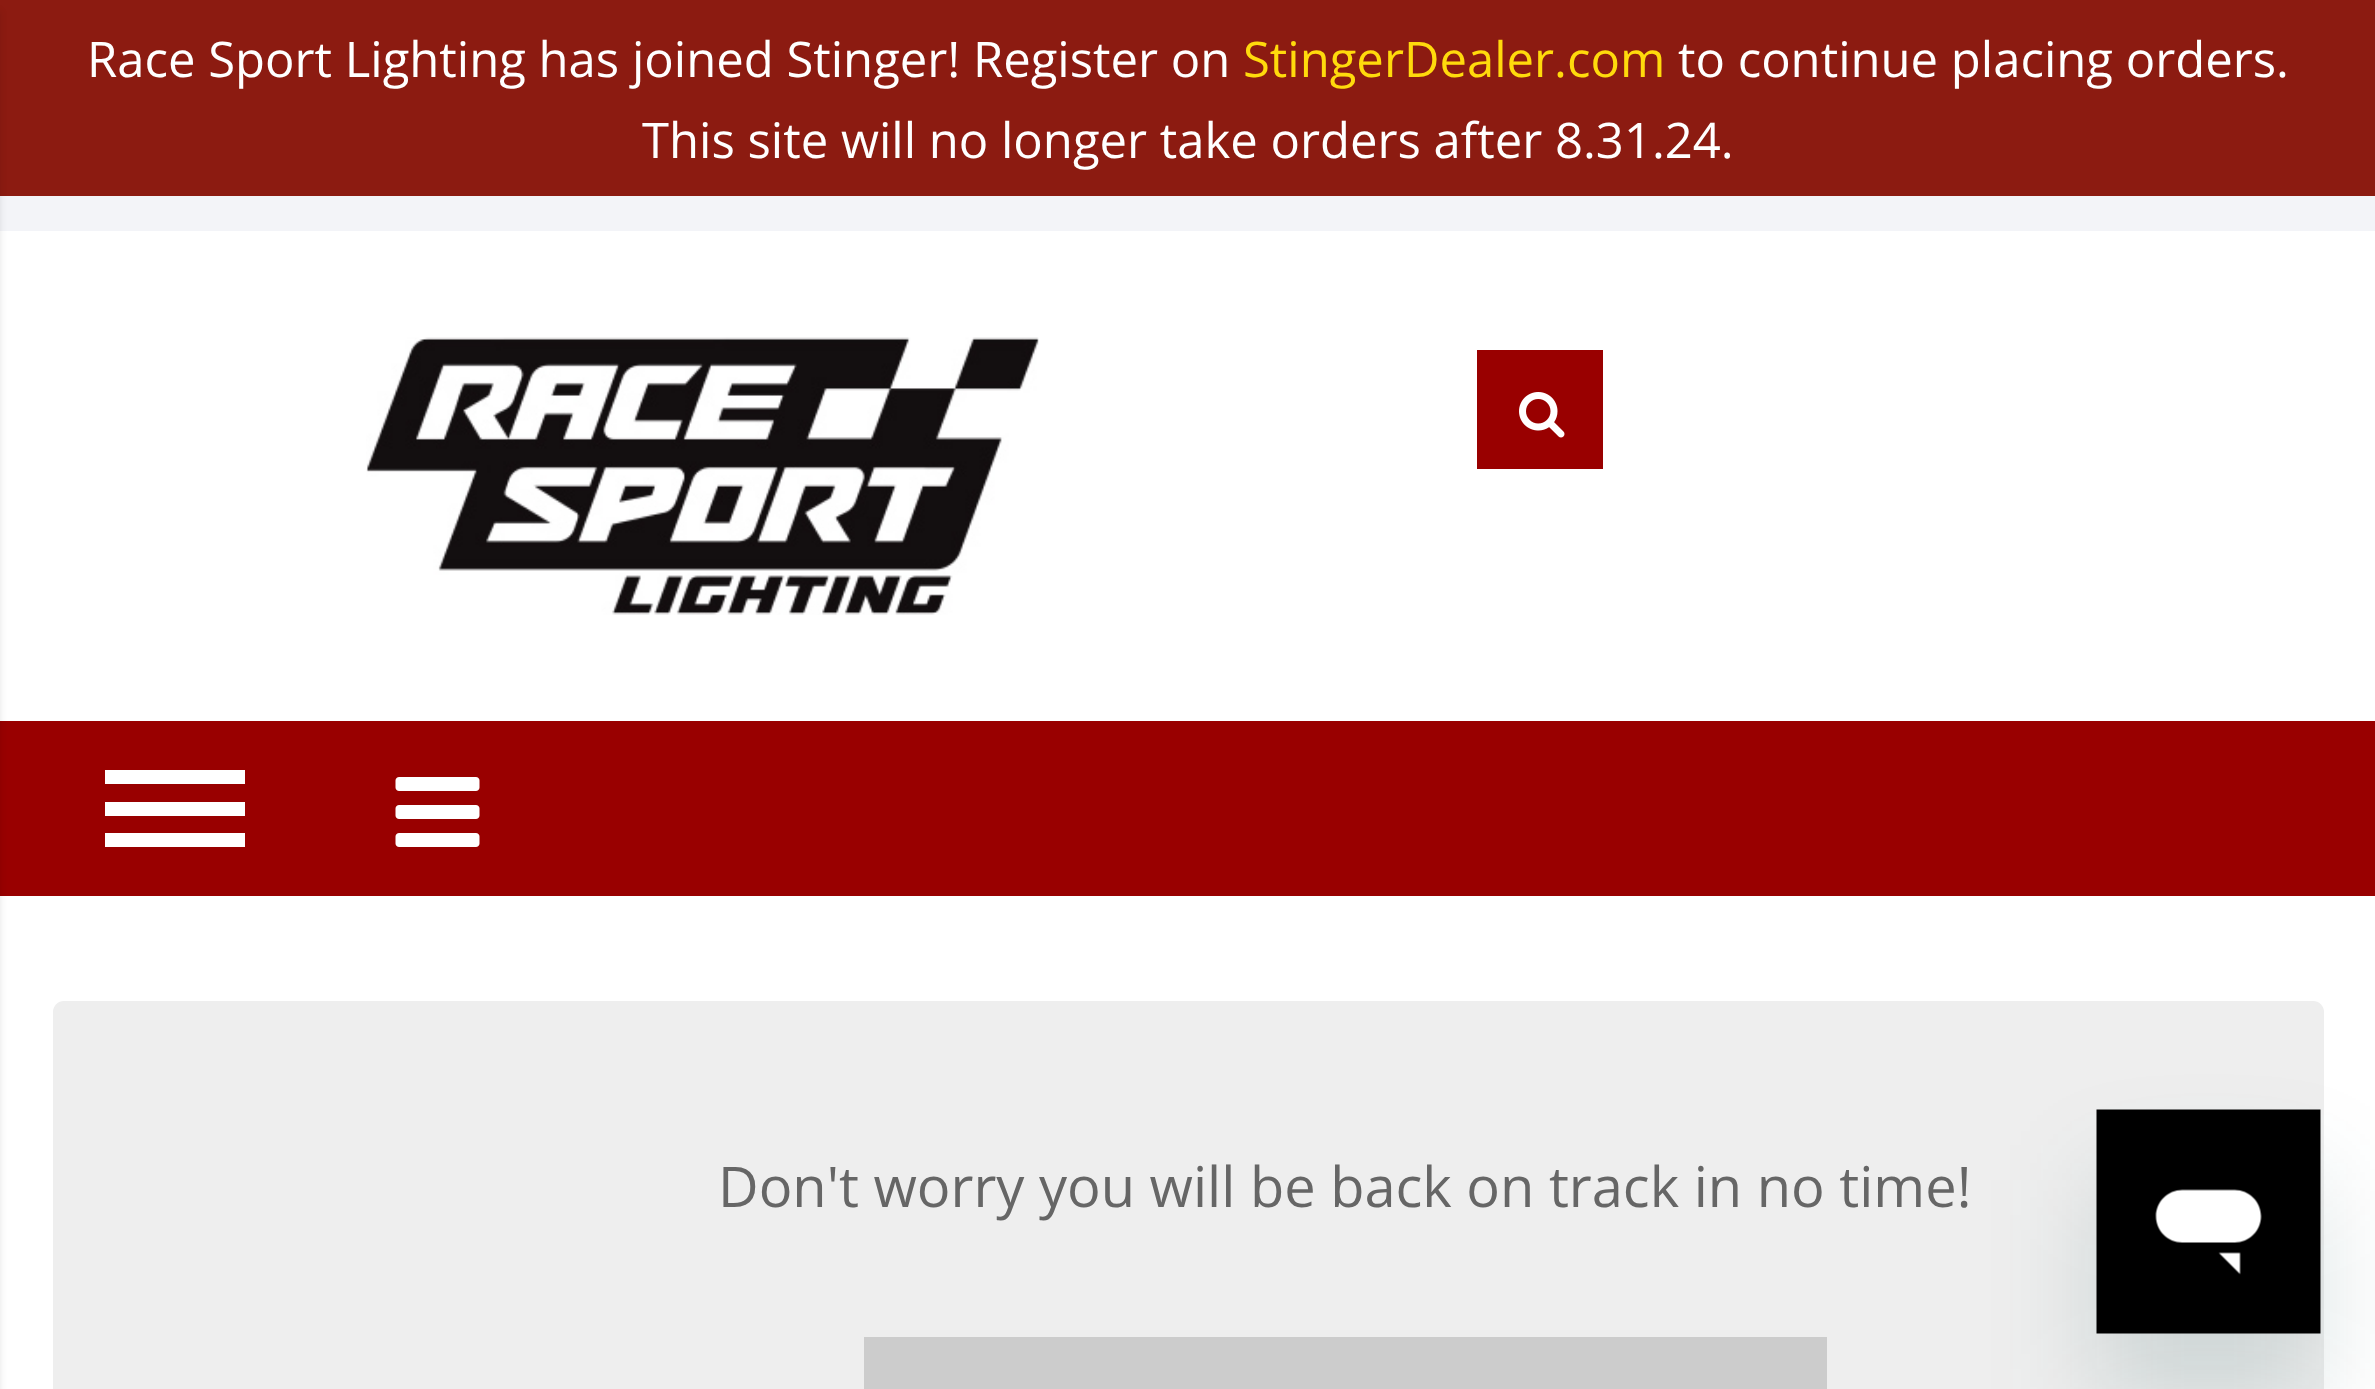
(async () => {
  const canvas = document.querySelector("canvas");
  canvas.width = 2375;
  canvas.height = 1389;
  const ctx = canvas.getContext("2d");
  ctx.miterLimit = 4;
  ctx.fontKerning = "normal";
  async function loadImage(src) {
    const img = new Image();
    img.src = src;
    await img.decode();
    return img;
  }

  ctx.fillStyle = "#ffffff";
  ctx.fillRect(0, 0, 2375, 1389);
  for (const [x, y, w, h, color] of [
    [0, 721, 2375, 175, "#990000"],
    [0, 196, 2375, 35, "#f3f4f8"],
    [0, 0, 2375, 196, "#8c1b11"],
  ]) {
    ctx.fillStyle = color;
    ctx.fillRect(x, y, w, h);
  }
  ctx.fillStyle = "rgba(0, 0, 0, 0.1)";
  ctx.filter = "blur(3.5px)";
  ctx.beginPath();
  ctx.rect(-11, 11, 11, 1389);
  ctx.fill();
  ctx.filter = "none";
  ctx.drawImage(await loadImage("img/1.png"), 395, 777, 85, 70);
  for (const [x, y, w, h, color] of [
    [105, 770, 140, 14, "#ffffff"],
    [105, 802, 140, 14, "#ffffff"],
    [105, 833, 140, 14, "#ffffff"],
  ]) {
    ctx.fillStyle = color;
    ctx.fillRect(x, y, w, h);
  }
  ctx.drawImage(await loadImage("img/2.png"), 366, 337, 673, 278);
  ctx.fillStyle = "#990000";
  ctx.fillRect(1477, 350, 126, 119);
  ctx.drawImage(await loadImage("img/3.png"), 1519, 392, 46, 46);
  ctx.fillStyle = "#eeeeee";
  ctx.beginPath();
  ctx.roundRect(53, 1001, 2271, 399, 11);
  ctx.fill();
  ctx.fillStyle = "#cccccc";
  ctx.fillRect(864, 1337, 963, 52);
  ctx.fillStyle = "rgba(23, 73, 77, 0.15)";
  ctx.filter = "blur(52.5px)";
  ctx.beginPath();
  ctx.rect(2097, 1180, 224, 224);
  ctx.fill();
  ctx.filter = "none";
  ctx.drawImage(await loadImage("img/4.png"), 2096, 1109, 225, 225);
  ctx.font = "49px Open Sans";
  ctx.fillStyle = "#ffffff";
  ctx.fillText("Race Sport Lighting has joined Stinger! Register on", 87, 77);
  ctx.fillStyle = "#ffda0c";
  ctx.fillText("StingerDealer.com", 1243, 77);
  ctx.fillStyle = "#ffffff";
  ctx.fillText("to continue placing orders.", 1678, 77);
  ctx.fillText("This site will no longer take orders after 8.31.24.", 642, 158);
  ctx.font = "56px Open Sans";
  ctx.fillStyle = "#666666";
  ctx.fillText("Don't worry you will be back on track in no time!", 718, 1207);
})();
